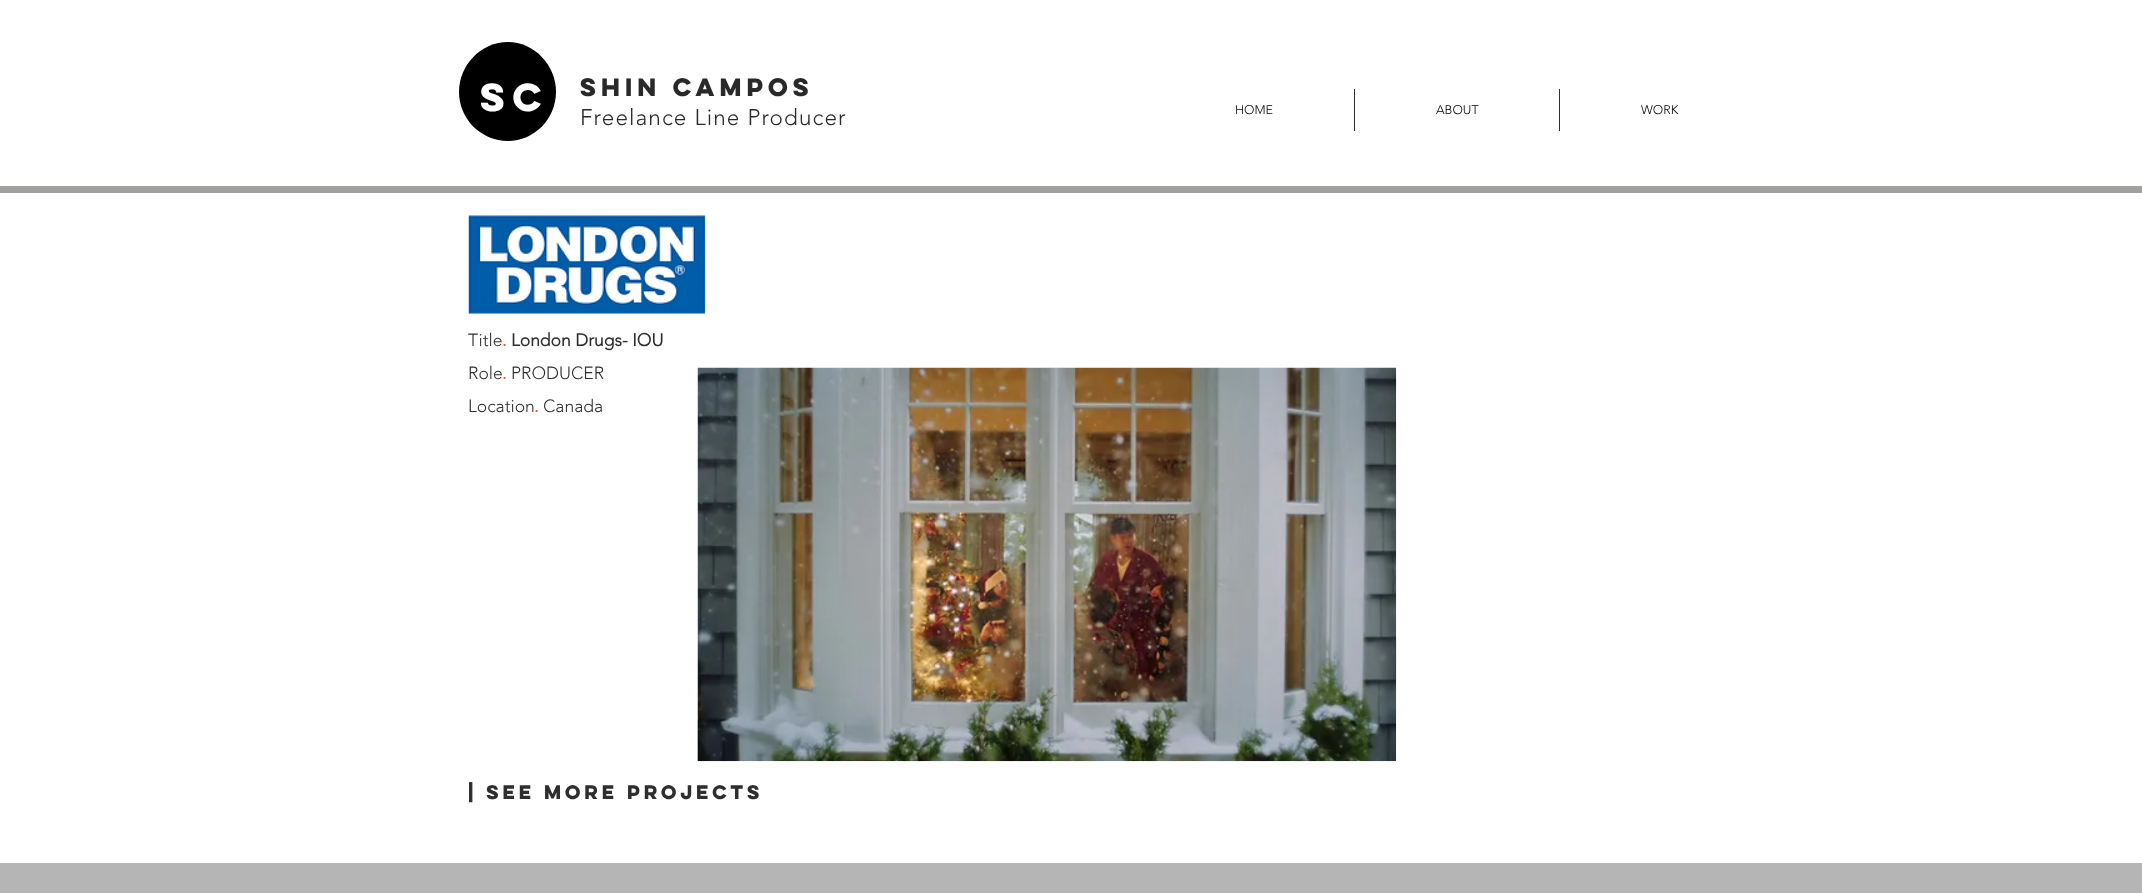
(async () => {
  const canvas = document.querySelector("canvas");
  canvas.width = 2142;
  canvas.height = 893;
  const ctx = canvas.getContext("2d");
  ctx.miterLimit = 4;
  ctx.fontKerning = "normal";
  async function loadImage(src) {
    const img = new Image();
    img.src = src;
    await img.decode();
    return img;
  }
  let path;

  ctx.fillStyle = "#ffffff";
  ctx.fillRect(0, 0, 2142, 893);
  ctx.fillStyle = "#000000";
  path = new Path2D("M556 92C556 119 534 141 508 141C481 141 459 119 459 92C459 65 481 42 508 42C534 42 556 65 556 92Z");
  ctx.fill(path);
  for (const [x, y, w, h, color] of [
    [1354, 89, 1, 42, "#2f2e2e"],
    [1559, 89, 1, 42, "#2f2e2e"],
    [0, 186, 2142, 7, "#a0a09f"],
  ]) {
    ctx.fillStyle = color;
    ctx.fillRect(x, y, w, h);
  }
  ctx.drawImage(await loadImage("img/1.png"), 468, 215, 238, 99);
  ctx.drawImage(await loadImage("img/2.png"), 697, 367, 700, 395);
  ctx.fillStyle = "#b6b5b5";
  ctx.fillRect(0, 863, 2142, 30);
  ctx.font = "bold 22.5px 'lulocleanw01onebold'";
  ctx.fillStyle = "#292929";
  ctx.fillText("SHIN CAMPOS", 580, 96);
  ctx.letterSpacing = "1.1px";
  ctx.font = "300 22.5px 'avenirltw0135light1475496'";
  ctx.fillText("Freelance Line Producer", 580, 125);
  ctx.letterSpacing = "0px";
  ctx.font = "bold 35px 'lulocleanw01onebold'";
  ctx.fillStyle = "#ffffff";
  ctx.fillText("SC", 480, 111);
  ctx.font = "300 12.5px 'avenirltw0135light1475496'";
  ctx.fillStyle = "#000000";
  for (const [text, x, y] of [
    ["HOME", 1235, 114],
    ["ABOUT", 1436, 114],
    ["WORK", 1641, 114],
  ]) {
    ctx.fillText(text, x, y);
  }
  ctx.font = "300 17.5px 'avenirltw0135light1475496'";
  ctx.fillStyle = "#2f2e2e";
  ctx.fillText("Title", 468, 346);
  ctx.font = "bold 17.5px 'avenirltw0135light1475496'";
  ctx.fillStyle = "#de5021";
  ctx.fillText(".", 502, 346);
  ctx.fillStyle = "#2f2e2e";
  ctx.fillText("London Drugs- IOU", 511, 346);
  ctx.font = "300 17.5px 'avenirltw0135light1475496'";
  ctx.fillText("Role", 468, 379);
  ctx.font = "bold 17.5px 'avenirltw0135light1475496'";
  ctx.fillStyle = "#de5021";
  ctx.fillText(".", 502, 379);
  ctx.font = "300 17.5px 'avenirltw0135light1475496'";
  ctx.fillStyle = "#2f2e2e";
  ctx.fillText("PRODUCER", 511, 379);
  ctx.fillText("Location", 468, 412);
  ctx.font = "bold 17.5px 'avenirltw0135light1475496'";
  ctx.fillStyle = "#de5021";
  ctx.fillText(".", 534, 412);
  ctx.font = "300 17.5px 'avenirltw0135light1475496'";
  ctx.fillStyle = "#2f2e2e";
  ctx.fillText("Canada", 543, 412);
  ctx.font = "bold 17.5px 'lulocleanw01onebold'";
  ctx.fillText("| SEE MORE PROJECTS", 468, 799);
})();
